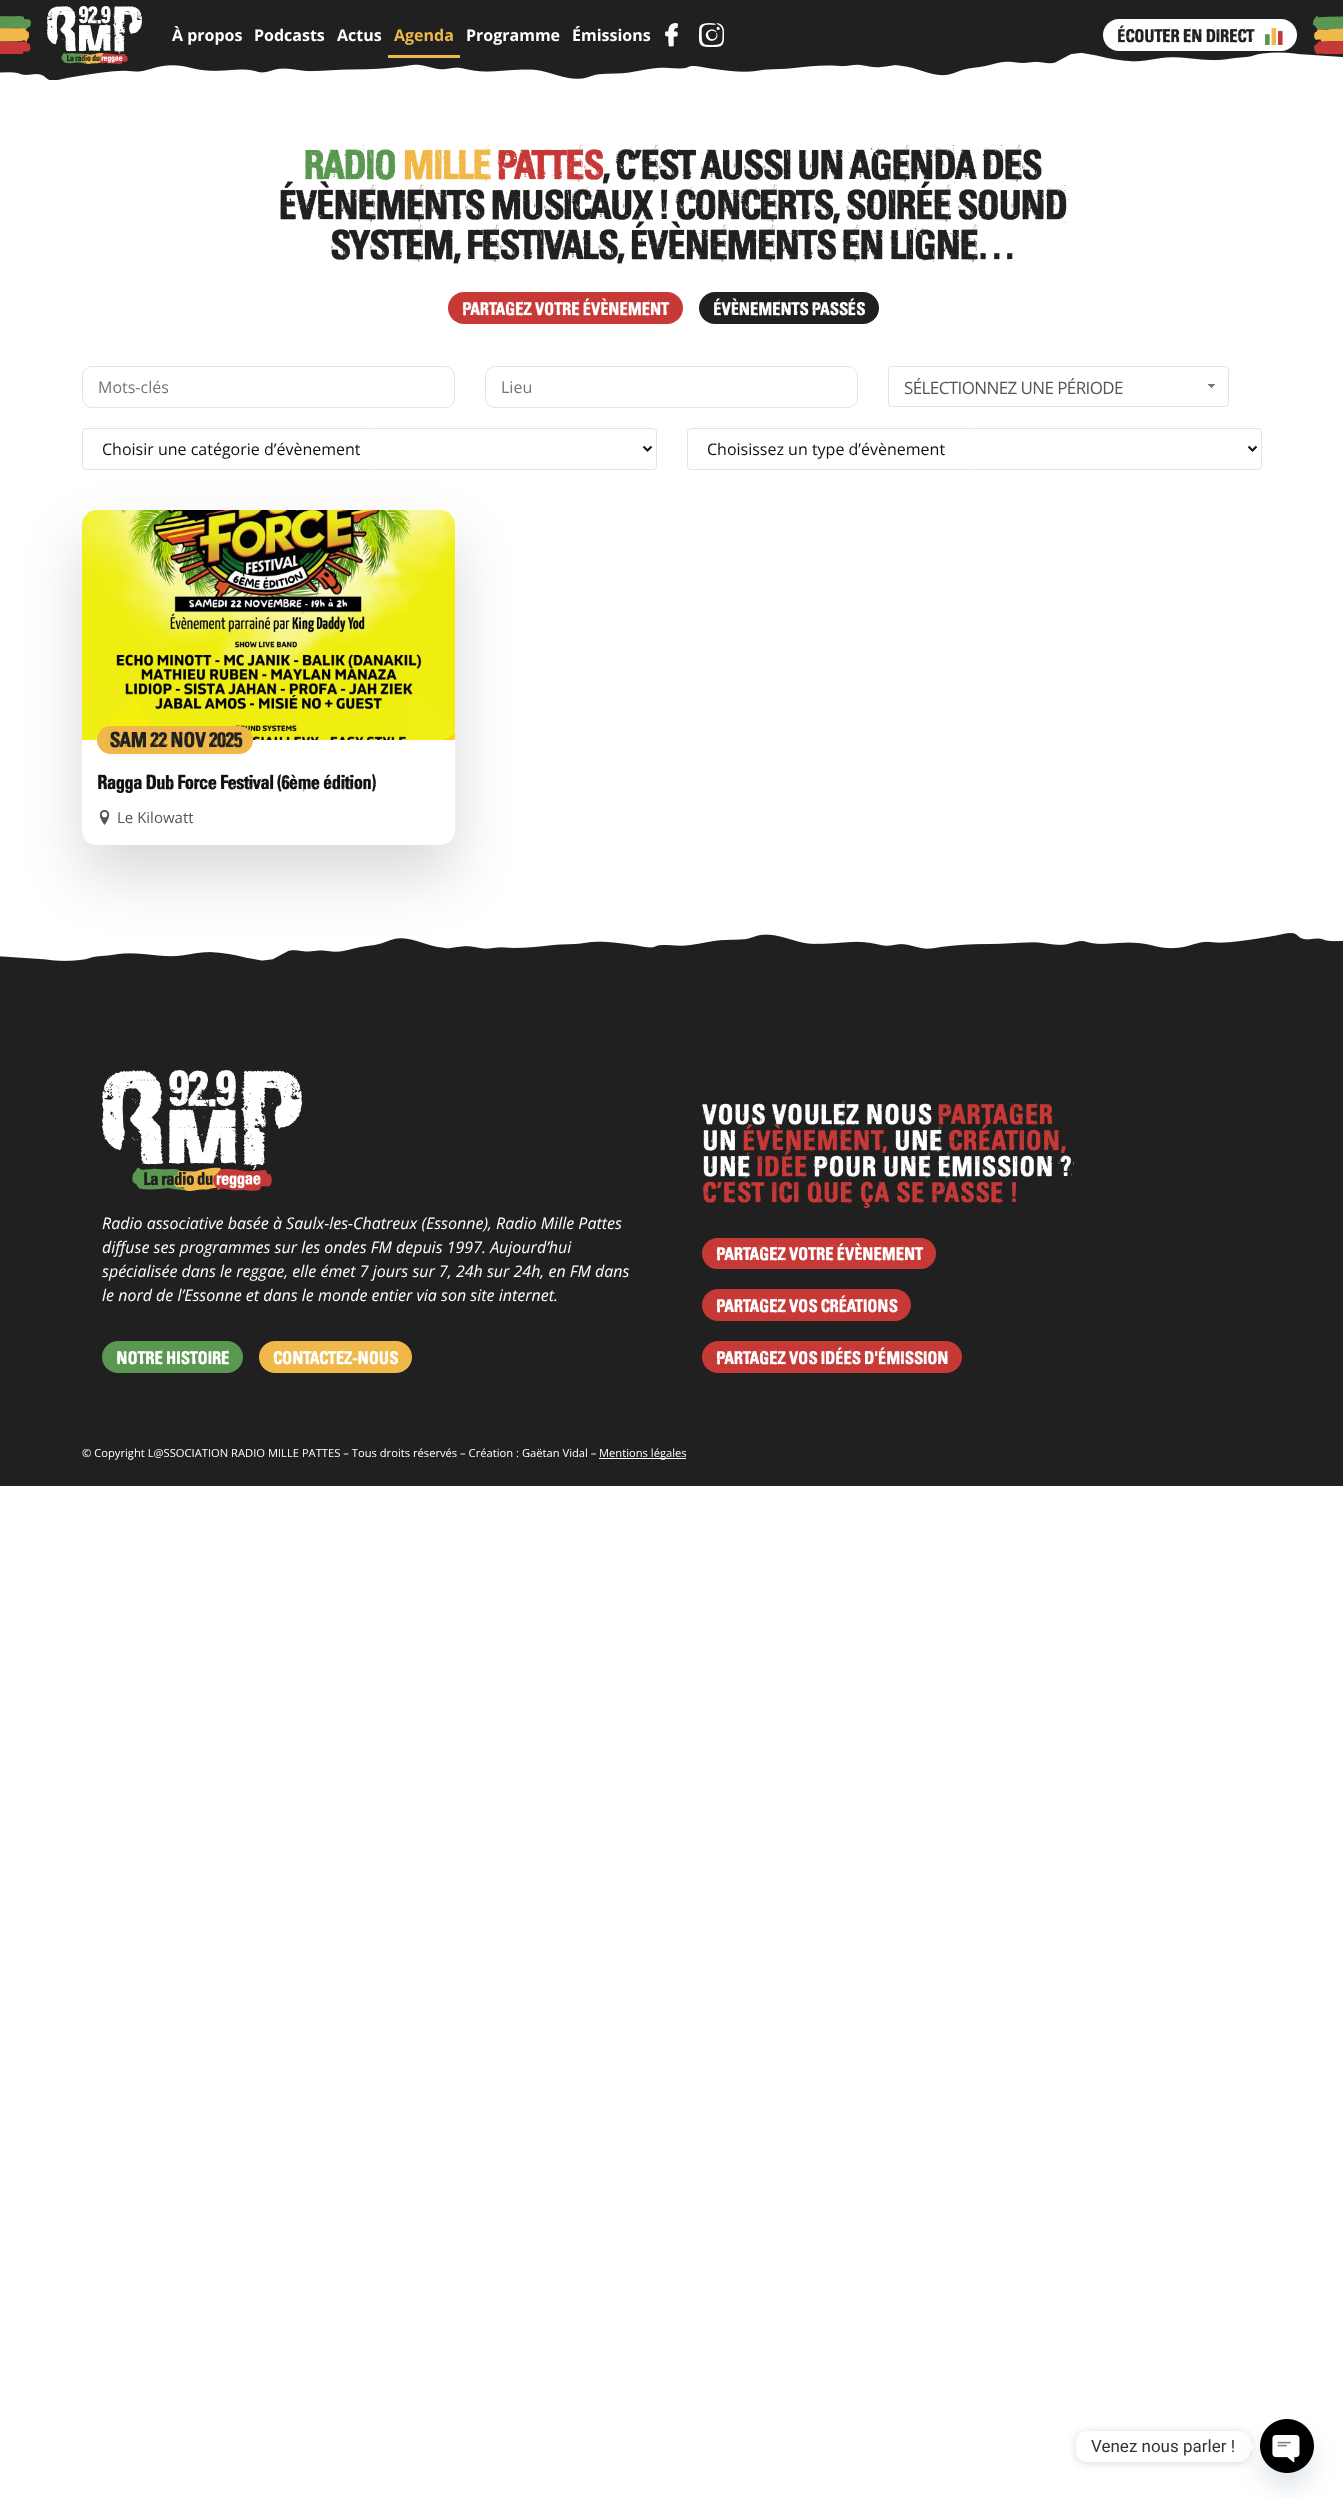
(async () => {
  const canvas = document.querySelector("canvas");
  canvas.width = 1343;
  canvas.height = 2498;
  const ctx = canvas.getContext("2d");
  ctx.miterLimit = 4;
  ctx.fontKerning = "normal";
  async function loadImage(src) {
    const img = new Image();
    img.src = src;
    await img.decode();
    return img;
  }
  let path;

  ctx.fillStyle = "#ffffff";
  ctx.fillRect(0, 0, 1343, 2498);
  ctx.drawImage(await loadImage("img/1.png"), 0, 0, 1343, 80);
  ctx.drawImage(await loadImage("img/2.png"), 0, 16, 31, 38);
  ctx.drawImage(await loadImage("img/3.png"), 47, 6, 95, 58);
  ctx.fillStyle = "#efb849";
  ctx.fillRect(388, 55, 72, 3);
  ctx.drawImage(await loadImage("img/4.png"), 665, 23, 13, 24);
  ctx.drawImage(await loadImage("img/5.png"), 699, 23, 25, 24);
  ctx.fillStyle = "#ffffff";
  ctx.beginPath();
  ctx.roundRect(1103, 19, 194, 32, 16);
  ctx.fill();
  ctx.drawImage(await loadImage("img/6.png"), 1265, 28, 18, 17);
  ctx.drawImage(await loadImage("img/7.png"), 1313, 16, 30, 38);
  ctx.fillStyle = "#c63937";
  ctx.beginPath();
  ctx.roundRect(448, 292, 235, 32, 16);
  ctx.fill();
  ctx.fillStyle = "#202020";
  ctx.beginPath();
  ctx.roundRect(699, 292, 180, 32, 16);
  ctx.fill();
  ctx.beginPath();
  ctx.roundRect(82.5, 366.5, 372, 41, 9.5);
  ctx.strokeStyle = "#e4e4e4";
  ctx.stroke();
  ctx.beginPath();
  ctx.roundRect(485.5, 366.5, 372, 41, 9.5);
  ctx.stroke();
  ctx.beginPath();
  ctx.roundRect(888.5, 366.5, 340, 40, 3.5);
  ctx.stroke();
  ctx.drawImage(await loadImage("img/8.png"), 1208, 384, 7, 4);
  ctx.beginPath();
  ctx.roundRect(82.5, 428.5, 574, 41, 3.5);
  ctx.stroke();
  path = new Path2D("M643.5 446.5L647.5 450.5L651.5 446.5");
  ctx.strokeStyle = "#111111";
  ctx.lineWidth = 2;
  ctx.stroke(path);
  ctx.beginPath();
  ctx.roundRect(687.5, 428.5, 574, 41, 3.5);
  ctx.strokeStyle = "#e4e4e4";
  ctx.lineWidth = 1;
  ctx.stroke();
  path = new Path2D("M1248.5 446.5L1252.5 450.5L1256.5 446.5");
  ctx.strokeStyle = "#111111";
  ctx.lineWidth = 2;
  ctx.stroke(path);
  ctx.save();
  path = new Path2D("M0 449H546V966H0ZM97 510H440C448.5 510 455 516.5 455 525V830C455 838.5 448.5 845 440 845H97C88.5 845 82 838.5 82 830V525C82 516.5 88.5 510 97 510Z");
  ctx.clip(path, "evenodd");
  ctx.fillStyle = "rgba(0, 0, 0, 0.15)";
  ctx.filter = "blur(30px)";
  ctx.beginPath();
  ctx.roundRect(82, 540, 373, 335, 15);
  ctx.fill();
  ctx.filter = "none";
  ctx.restore();
  ctx.drawImage(await loadImage("img/9.png"), 82, 510, 373, 230);
  ctx.fillStyle = "#efb849";
  ctx.beginPath();
  ctx.roundRect(97, 726, 156, 28, 14);
  ctx.fill();
  ctx.drawImage(await loadImage("img/10.png"), 99, 809, 11, 16);
  ctx.drawImage(await loadImage("img/11.png"), 0, 933, 1343, 75);
  ctx.fillStyle = "#202020";
  ctx.fillRect(0, 1008, 1343, 478);
  ctx.drawImage(await loadImage("img/12.png"), 102, 1070, 200, 121);
  ctx.fillStyle = "#5a9751";
  ctx.beginPath();
  ctx.roundRect(102, 1341, 141, 32, 16);
  ctx.fill();
  ctx.fillStyle = "#efb849";
  ctx.beginPath();
  ctx.roundRect(259, 1341, 153, 32, 16);
  ctx.fill();
  ctx.fillStyle = "#c63937";
  ctx.beginPath();
  ctx.roundRect(702, 1238, 234, 31, 15.5);
  ctx.fill();
  ctx.beginPath();
  ctx.roundRect(702, 1289, 209, 32, 16);
  ctx.fill();
  ctx.beginPath();
  ctx.roundRect(702, 1341, 260, 32, 16);
  ctx.fill();
  ctx.fillStyle = "#ffffff";
  ctx.fillRect(599, 1458, 87, 1);
  ctx.fillStyle = "rgba(0, 0, 0, 0.15)";
  ctx.filter = "blur(4px)";
  ctx.beginPath();
  ctx.roundRect(1076, 2432, 174, 31, 10);
  ctx.fill();
  ctx.filter = "none";
  ctx.fillStyle = "#ffffff";
  ctx.beginPath();
  ctx.roundRect(1076, 2431, 174, 31, 10);
  ctx.fill();
  path = new Path2D("M1250 2451.5V2441.5L1255 2446.5Z");
  ctx.fill(path);
  ctx.fillStyle = "rgba(73, 104, 126, 0.16)";
  ctx.filter = "blur(12px)";
  ctx.beginPath();
  ctx.roundRect(1260, 2435, 54, 54, 27);
  ctx.fill();
  ctx.filter = "none";
  ctx.drawImage(await loadImage("img/13.png"), 1260, 2419, 54, 54);
  ctx.font = "bold 16px Open Sans";
  ctx.fillStyle = "#ffffff";
  for (const [text, x, y] of [
    ["À propos", 172, 41],
    ["Podcasts", 254, 41],
    ["Actus", 337, 41],
  ]) {
    ctx.fillText(text, x, y);
  }
  ctx.fillStyle = "#efb849";
  ctx.fillText("Agenda", 394, 41);
  ctx.fillStyle = "#ffffff";
  ctx.fillText("Programme", 466, 41);
  ctx.fillText("Émissions", 572, 41);
  ctx.letterSpacing = "-0.6px";
  ctx.font = "17.6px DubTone";
  ctx.fillStyle = "#202020";
  ctx.fillText("ÉCOUTER EN DIRECT", 1117, 42);
  ctx.letterSpacing = "-2.5px";
  ctx.font = "40px DubTone";
  ctx.fillStyle = "#5a9751";
  ctx.fillText("RADIO", 303, 179);
  ctx.fillStyle = "#efb849";
  ctx.fillText("MILLE", 402, 179);
  ctx.fillStyle = "#c63937";
  ctx.fillText("PATTES", 496, 179);
  ctx.fillStyle = "#202020";
  for (const [text, x, y] of [
    [", C’EST AUSSI UN AGENDA DES", 602, 179],
    ["ÉVÈNEMENTS MUSICAUX ! CONCERTS, SOIRÉE SOUND", 278, 219],
    ["SYSTEM, FESTIVALS, ÉVÈNEMENTS EN LIGNE…", 329, 259],
  ]) {
    ctx.fillText(text, x, y);
  }
  ctx.letterSpacing = "-0.6px";
  ctx.font = "17.6px DubTone";
  ctx.fillStyle = "#ffffff";
  ctx.fillText("PARTAGEZ VOTRE ÉVÈNEMENT", 462, 315);
  ctx.fillText("ÉVÈNEMENTS PASSÉS", 713, 315);
  ctx.letterSpacing = "0px";
  ctx.font = "16px Open Sans";
  ctx.fillStyle = "#757575";
  ctx.fillText("Mots-clés", 98, 393);
  ctx.fillText("Lieu", 501, 393);
  ctx.letterSpacing = "-0.6px";
  ctx.font = "17px Open Sans";
  ctx.fillStyle = "#555555";
  ctx.fillText("SÉLECTIONNEZ UNE PÉRIODE", 904, 394);
  ctx.letterSpacing = "0px";
  ctx.font = "16px Open Sans";
  ctx.fillStyle = "#111111";
  ctx.fillText("Choisir une catégorie d’évènement", 102, 455);
  ctx.fillText("Choisissez un type d’évènement", 707, 455);
  ctx.letterSpacing = "-1px";
  ctx.font = "20.75px DubTone";
  ctx.fillStyle = "#202020";
  ctx.fillText("SAM 22 NOV 2025", 109, 747);
  ctx.font = "19.5px DubTone";
  ctx.fillStyle = "#111111";
  ctx.fillText("Ragga Dub Force Festival (6ème édition)", 97, 789);
  ctx.letterSpacing = "0px";
  ctx.font = "15px Open Sans";
  ctx.fillStyle = "#555555";
  ctx.fillText("Le Kilowatt", 117, 823);
  ctx.font = "italic 16px Open Sans";
  ctx.fillStyle = "#ffffff";
  for (const [text, x, y] of [
    ["Radio associative basée à Saulx-les-Chatreux (Essonne), Radio Mille Pattes", 102, 1229],
    ["diffuse ses programmes sur les ondes FM depuis 1997. Aujourd’hui", 102, 1253],
    ["spécialisée dans le reggae, elle émet 7 jours sur 7, 24h sur 24h, en FM dans", 102, 1277],
    ["le nord de l’Essonne et dans le monde entier via son site internet.", 102, 1301],
  ]) {
    ctx.fillText(text, x, y);
  }
  ctx.letterSpacing = "-0.6px";
  ctx.font = "17.6px DubTone";
  ctx.fillText("NOTRE HISTOIRE", 116, 1364);
  ctx.fillText("CONTACTEZ-NOUS", 273, 1364);
  ctx.letterSpacing = "0px";
  ctx.font = "27.25px DubTone";
  ctx.fillText("VOUS VOULEZ NOUS", 702, 1124);
  ctx.fillStyle = "#c63937";
  ctx.fillText("PARTAGER", 937, 1124);
  ctx.fillStyle = "#ffffff";
  ctx.fillText("UN", 702, 1150);
  ctx.fillStyle = "#c63937";
  ctx.fillText("ÉVÈNEMENT,", 742, 1150);
  ctx.fillStyle = "#ffffff";
  ctx.fillText("UNE", 894, 1150);
  ctx.fillStyle = "#c63937";
  ctx.fillText("CRÉATION,", 948, 1150);
  ctx.fillStyle = "#ffffff";
  ctx.fillText("UNE", 702, 1176);
  ctx.fillStyle = "#c63937";
  ctx.fillText("IDÉE", 756, 1176);
  ctx.fillStyle = "#ffffff";
  ctx.fillText("POUR UNE EMISSION ?", 813, 1176);
  ctx.fillStyle = "#c63937";
  ctx.fillText("C’EST ICI QUE ÇA SE PASSE !", 702, 1202);
  ctx.letterSpacing = "-0.6px";
  ctx.font = "17.6px DubTone";
  ctx.fillStyle = "#ffffff";
  for (const [text, x, y] of [
    ["PARTAGEZ VOTRE ÉVÈNEMENT", 716, 1260],
    ["PARTAGEZ VOS CRÉATIONS", 716, 1312],
    ["PARTAGEZ VOS IDÉES D'ÉMISSION", 716, 1364],
  ]) {
    ctx.fillText(text, x, y);
  }
  ctx.letterSpacing = "0px";
  ctx.font = "11.2px Open Sans";
  ctx.fillText("© Copyright L@SSOCIATION RADIO MILLE PATTES – Tous droits réservés – Création : Gaëtan Vidal –", 82, 1457);
  ctx.fillText("Mentions légales", 599, 1457);
  ctx.font = "17px Roboto";
  ctx.fillStyle = "#333333";
  ctx.fillText("Venez nous parler !", 1091, 2452);
})();
